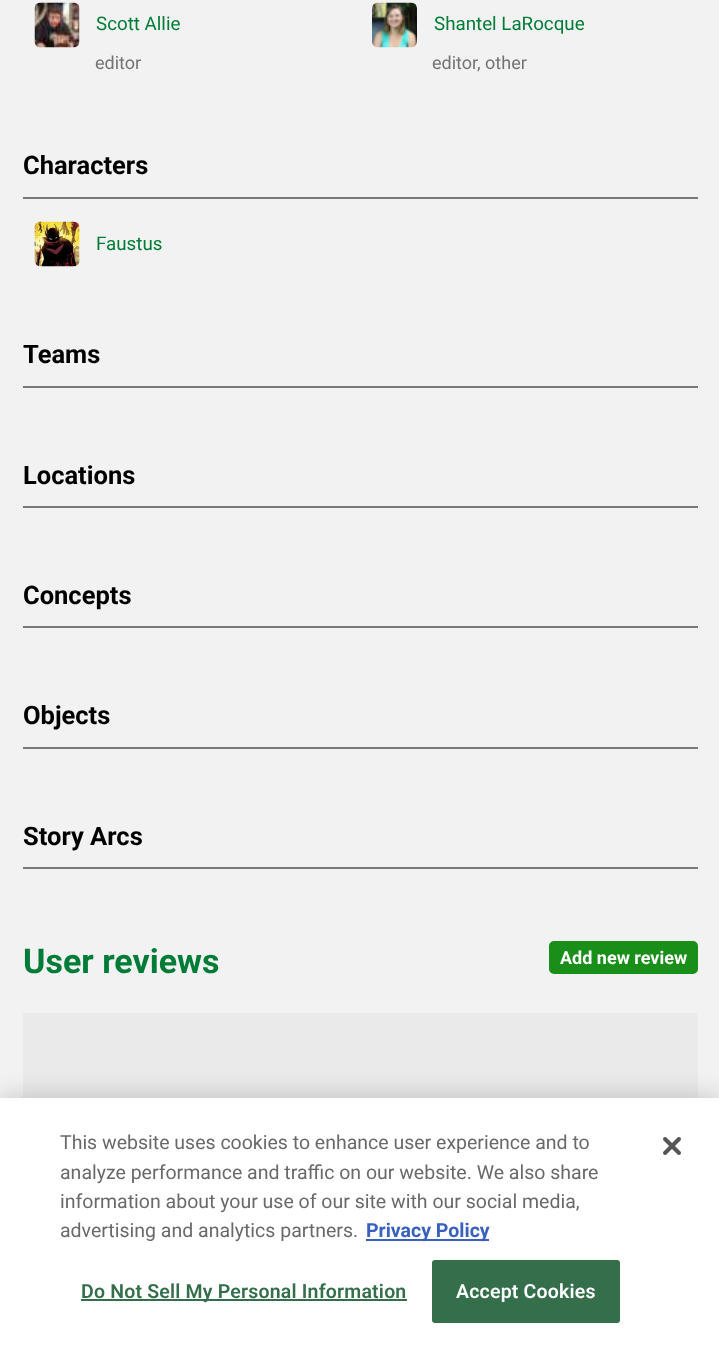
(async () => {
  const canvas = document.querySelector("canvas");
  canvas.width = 719;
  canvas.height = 1347;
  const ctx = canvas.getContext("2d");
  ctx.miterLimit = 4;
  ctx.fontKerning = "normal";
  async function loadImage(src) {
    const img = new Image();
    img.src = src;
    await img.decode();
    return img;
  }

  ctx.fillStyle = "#f2f2f2";
  ctx.fillRect(0, 0, 719, 1347);
  ctx.drawImage(await loadImage("img/1.png"), 34, 2, 46, 46);
  ctx.drawImage(await loadImage("img/2.png"), 372, 2, 45, 46);
  ctx.fillStyle = "#797979";
  ctx.fillRect(23, 197, 675, 2);
  ctx.drawImage(await loadImage("img/3.png"), 34, 221, 46, 46);
  for (const [x, y, w, h, color] of [
    [23, 386, 675, 2, "#797979"],
    [23, 506, 675, 2, "#797979"],
    [23, 626, 675, 2, "#797979"],
    [23, 747, 675, 2, "#797979"],
    [23, 867, 675, 2, "#797979"],
  ]) {
    ctx.fillStyle = color;
    ctx.fillRect(x, y, w, h);
  }
  ctx.fillStyle = "#198f19";
  ctx.beginPath();
  ctx.roundRect(550, 942, 147, 31, 4);
  ctx.fill();
  ctx.strokeStyle = "#198f19";
  ctx.lineWidth = 2;
  ctx.stroke();
  ctx.fillStyle = "#eaeaea";
  ctx.fillRect(23, 1013, 675, 85);
  ctx.fillStyle = "rgba(0, 0, 0, 0.2)";
  ctx.filter = "blur(13.5px)";
  ctx.beginPath();
  ctx.rect(0, 1098, 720, 249);
  ctx.fill();
  ctx.filter = "none";
  for (const [x, y, w, h, color] of [
    [0, 1098, 719, 249, "#ffffff"],
    [366, 1239, 123, 2, "#3860be"],
    [81, 1299, 326, 2, "#346e4a"],
  ]) {
    ctx.fillStyle = color;
    ctx.fillRect(x, y, w, h);
  }
  ctx.beginPath();
  ctx.roundRect(433, 1261, 186, 61, 2);
  ctx.fill();
  ctx.strokeStyle = "#346e4a";
  ctx.stroke();
  ctx.drawImage(await loadImage("img/4.png"), 663, 1137, 18, 18);
  ctx.font = "18.75px Roboto";
  ctx.fillStyle = "#017c37";
  ctx.fillText("Scott Allie", 96, 30);
  ctx.font = "18px Roboto";
  ctx.fillStyle = "#737373";
  ctx.fillText("editor", 95, 69);
  ctx.font = "18.75px Roboto";
  ctx.fillStyle = "#017c37";
  ctx.fillText("Shantel LaRocque", 434, 30);
  ctx.font = "18px Roboto";
  ctx.fillStyle = "#737373";
  ctx.fillText("editor, other", 432, 69);
  ctx.font = "bold 25.5px Roboto";
  ctx.fillStyle = "#000000";
  ctx.fillText("Characters", 23, 174);
  ctx.font = "18.75px Roboto";
  ctx.fillStyle = "#017c37";
  ctx.fillText("Faustus", 96, 250);
  ctx.font = "bold 25.5px Roboto";
  ctx.fillStyle = "#000000";
  for (const [text, x, y] of [
    ["Teams", 23, 363],
    ["Locations", 23, 484],
    ["Concepts", 23, 604],
    ["Objects", 23, 724],
    ["Story Arcs", 23, 845],
  ]) {
    ctx.fillText(text, x, y);
  }
  ctx.font = "bold 34px Roboto";
  ctx.fillStyle = "#017c37";
  ctx.fillText("User reviews", 23, 973);
  ctx.font = "bold 18px Roboto";
  ctx.fillStyle = "#ffffff";
  ctx.fillText("Add new review", 560, 964);
  ctx.font = "19.5px Roboto";
  ctx.fillStyle = "#696969";
  for (const [text, x, y] of [
    ["This website uses cookies to enhance user experience and to", 60, 1149],
    ["analyze performance and traffic on our website. We also share", 60, 1179],
    ["information about your use of our site with our social media,", 60, 1208],
    ["advertising and analytics partners.", 60, 1237],
  ]) {
    ctx.fillText(text, x, y);
  }
  ctx.font = "bold 19.5px Roboto";
  ctx.fillStyle = "#3860be";
  ctx.fillText("Privacy Policy", 366, 1237);
  ctx.letterSpacing = "0.2px";
  ctx.font = "600 19.5px Roboto";
  ctx.fillStyle = "#346e4a";
  ctx.fillText("Do Not Sell My Personal Information", 81, 1298);
  ctx.fillStyle = "#ffffff";
  ctx.fillText("Accept Cookies", 456, 1298);
})();
